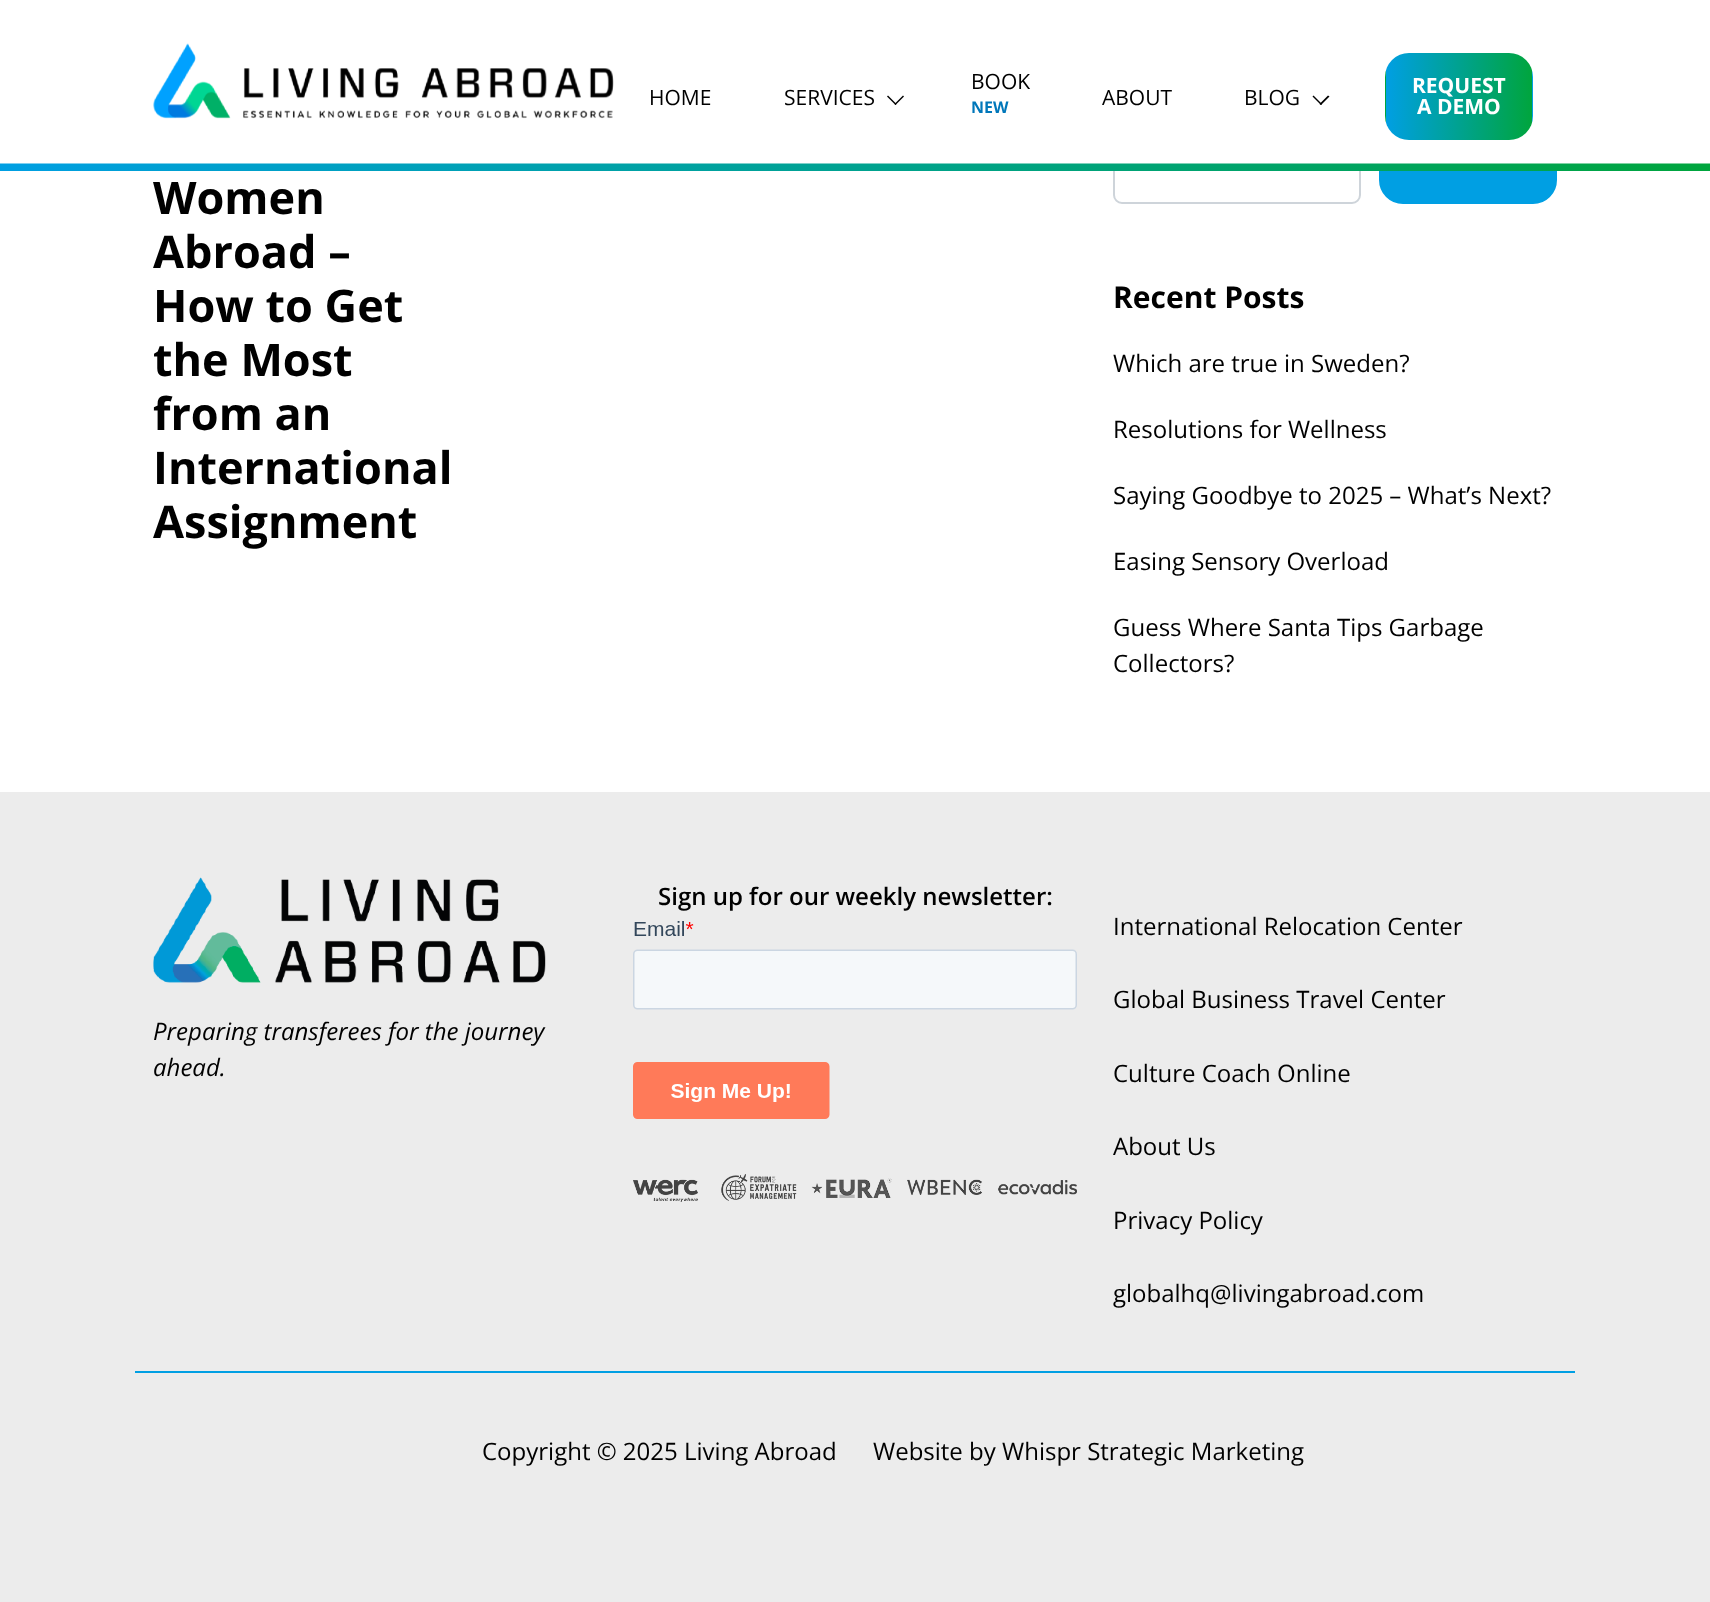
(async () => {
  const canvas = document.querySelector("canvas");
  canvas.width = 1710;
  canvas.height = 1602;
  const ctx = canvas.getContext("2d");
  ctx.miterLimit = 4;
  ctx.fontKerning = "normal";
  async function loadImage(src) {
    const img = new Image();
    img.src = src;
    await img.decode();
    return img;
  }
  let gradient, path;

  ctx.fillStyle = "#ececec";
  ctx.fillRect(0, 0, 1710, 1602);
  ctx.fillStyle = "#ffffff";
  ctx.fillRect(0, 171, 1710, 621);
  ctx.beginPath();
  ctx.roundRect(1114, 112, 246, 91, 8);
  ctx.strokeStyle = "#ced4da";
  ctx.lineWidth = 2;
  ctx.stroke();
  ctx.fillStyle = "#009fe3";
  ctx.beginPath();
  ctx.roundRect(1380, 112, 176, 91, 23);
  ctx.fill();
  ctx.strokeStyle = "#009fe3";
  ctx.stroke();
  ctx.fillStyle = "#ffffff";
  ctx.fillRect(0, 0, 1710, 164);
  ctx.drawImage(await loadImage("img/1.png"), 0, 163, 1710, 8);
  ctx.drawImage(await loadImage("img/2.png"), 153, 43, 461, 76);
  ctx.fillStyle = "#000000";
  path = new Path2D("M903 95.5L904 96.5L895.5 105L894.5 104Z");
  ctx.fill(path);
  path = new Path2D("M888 95.5L896.5 104L895.5 105L887 96.5Z");
  ctx.fill(path);
  path = new Path2D("M1328 95.5L1329.5 96.5L1321 105L1319.5 104Z");
  ctx.fill(path);
  path = new Path2D("M1313.5 95.5L1322 104L1321 105L1312.5 96.5Z");
  ctx.fill(path);
  ctx.save();
  ctx.beginPath();
  ctx.roundRect(1385, 53, 148, 87, 24);
  ctx.clip();
  gradient = ctx.createLinearGradient(1241, 96, 1386, 96);
  gradient.addColorStop(0, "#009fe3");
  gradient.addColorStop(1, "#00a53d");
  ctx.fillStyle = gradient;
  ctx.fillRect(1385, 70, 1, 53);
  gradient = ctx.createLinearGradient(1386, 96, 1532, 96);
  gradient.addColorStop(0, "#009fe3");
  gradient.addColorStop(1, "#00a53d");
  ctx.fillStyle = gradient;
  ctx.fillRect(1386, 53, 146, 87);
  gradient = ctx.createLinearGradient(1532, 96, 1677, 96);
  gradient.addColorStop(0, "#009fe3");
  gradient.addColorStop(1, "#00a53d");
  ctx.fillStyle = gradient;
  ctx.fillRect(1532, 70, 1, 53);
  ctx.restore();
  ctx.drawImage(await loadImage("img/3.png"), 633, 921, 444, 198);
  ctx.drawImage(await loadImage("img/4.png"), 633, 1174, 444, 28);
  ctx.drawImage(await loadImage("img/5.png"), 153, 877, 393, 106);
  ctx.fillStyle = "#009fe3";
  ctx.fillRect(135, 1371, 1440, 2);
  ctx.font = "21px Open Sans";
  ctx.fillStyle = "#000000";
  for (const [text, x, y] of [
    ["HOME", 649, 105],
    ["SERVICES", 784, 105],
    ["BOOK", 971, 89],
  ]) {
    ctx.fillText(text, x, y);
  }
  ctx.font = "bold 16px Open Sans";
  ctx.fillStyle = "#0077ba";
  ctx.fillText("NEW", 971, 113);
  ctx.font = "21px Open Sans";
  ctx.fillStyle = "#000000";
  ctx.fillText("ABOUT", 1102, 105);
  ctx.fillText("BLOG", 1244, 105);
  ctx.font = "bold 21px Open Sans";
  ctx.fillStyle = "#ffffff";
  ctx.fillText("REQUEST", 1412, 93);
  ctx.fillText("A DEMO", 1417, 114);
  ctx.font = "bold 45px Open Sans";
  ctx.fillStyle = "#000000";
  for (const [text, x, y] of [
    ["Women", 153, 214],
    ["Abroad –", 153, 268],
    ["How to Get", 153, 322],
    ["the Most", 153, 376],
    ["from an", 153, 430],
    ["International", 153, 484],
    ["Assignment", 153, 538],
  ]) {
    ctx.fillText(text, x, y);
  }
  ctx.font = "bold 30px Open Sans";
  ctx.fillText("Recent Posts", 1113, 308);
  ctx.font = "24px Open Sans";
  for (const [text, x, y] of [
    ["Which are true in Sweden?", 1113, 372],
    ["Resolutions for Wellness", 1113, 438],
    ["Saying Goodbye to 2025 – What’s Next?", 1113, 504],
    ["Easing Sensory Overload", 1113, 570],
    ["Guess Where Santa Tips Garbage", 1113, 636],
    ["Collectors?", 1113, 672],
  ]) {
    ctx.fillText(text, x, y);
  }
  ctx.font = "600 24px Open Sans";
  ctx.fillText("Sign up for our weekly newsletter:", 658, 905);
  ctx.font = "italic 24px Open Sans";
  ctx.fillText("Preparing transferees for the journey", 153, 1040);
  ctx.fillText("ahead.", 153, 1076);
  ctx.font = "24px Open Sans";
  for (const [text, x, y] of [
    ["International Relocation Center", 1113, 935],
    ["Global Business Travel Center", 1113, 1008],
    ["Culture Coach Online", 1113, 1082],
    ["About Us", 1113, 1155],
    ["Privacy Policy", 1113, 1229],
    ["globalhq@livingabroad.com", 1113, 1302],
    ["Copyright © 2025 Living Abroad", 482, 1460],
    ["Website by Whispr Strategic Marketing", 873, 1460],
  ]) {
    ctx.fillText(text, x, y);
  }
})();
